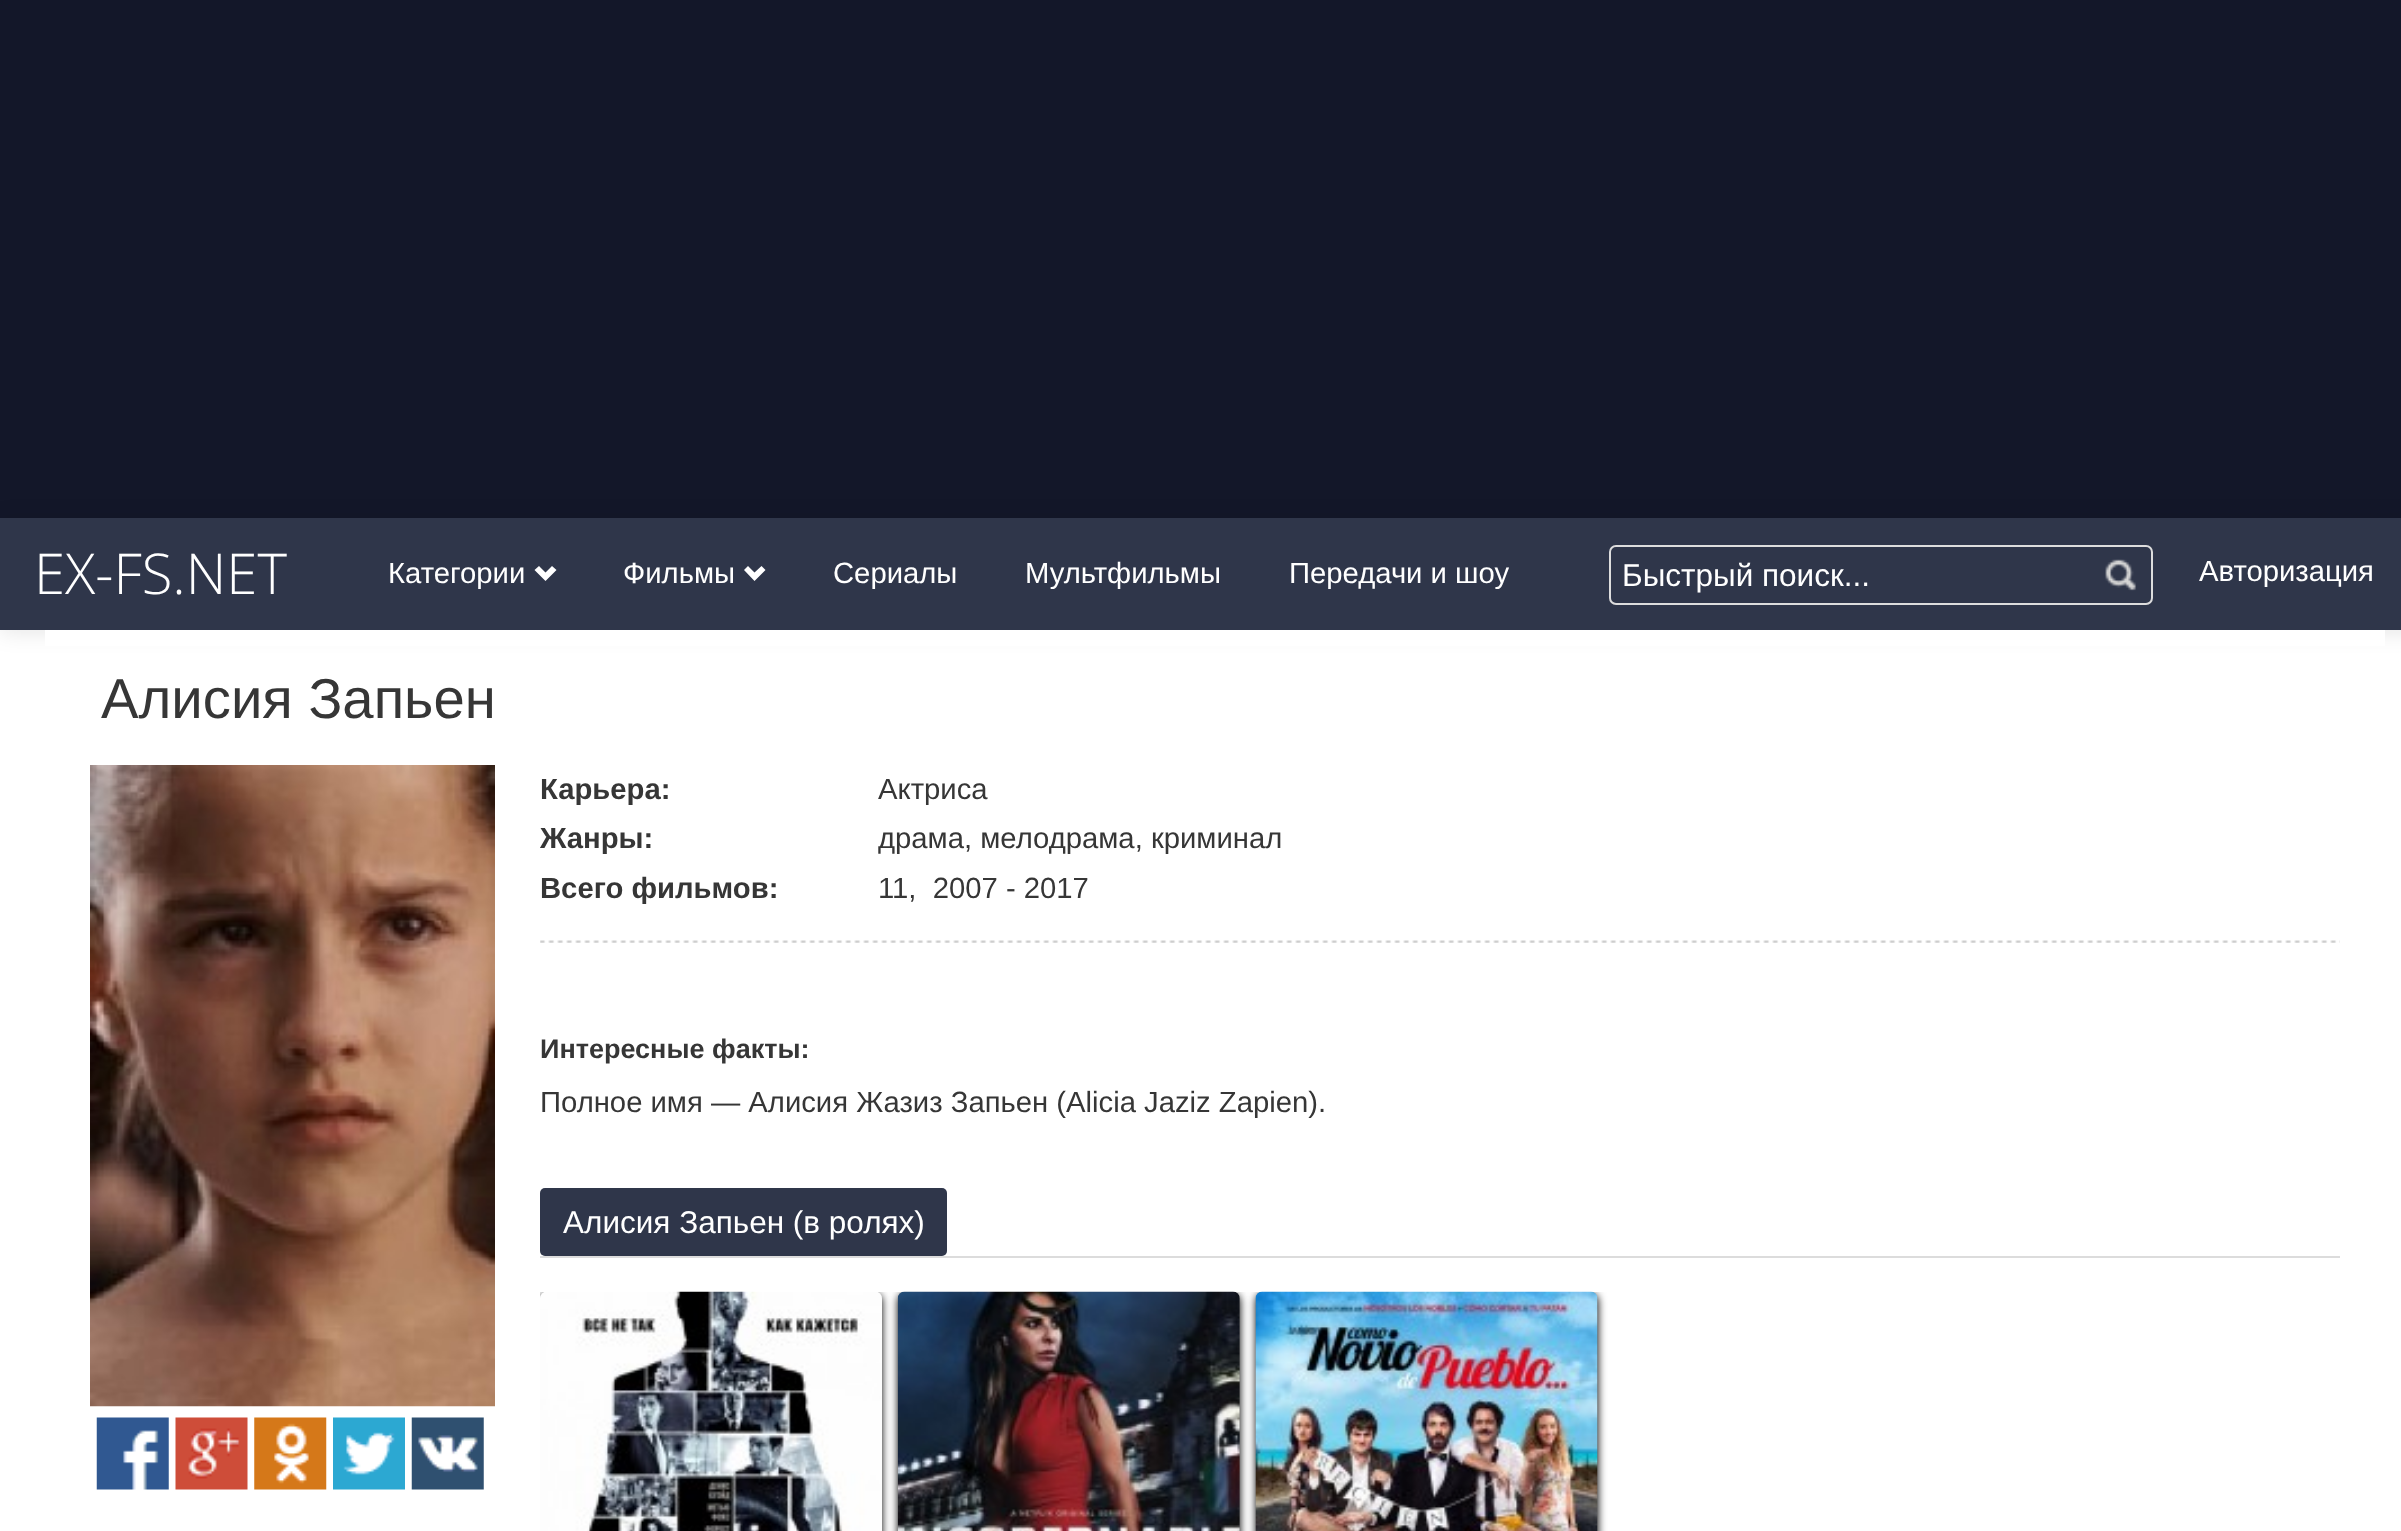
(async () => {
  const canvas = document.querySelector("canvas");
  canvas.width = 2401;
  canvas.height = 1531;
  const ctx = canvas.getContext("2d");
  ctx.miterLimit = 4;
  ctx.fontKerning = "normal";
  async function loadImage(src) {
    const img = new Image();
    img.src = src;
    await img.decode();
    return img;
  }
  let path;

  ctx.fillStyle = "#131729";
  ctx.fillRect(0, 0, 2401, 1531);
  ctx.fillStyle = "#ffffff";
  ctx.fillRect(0, 630, 2401, 901);
  ctx.fillStyle = "rgba(0, 0, 0, 0.1)";
  ctx.filter = "blur(11px)";
  ctx.beginPath();
  ctx.rect(0, 520, 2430, 112);
  ctx.fill();
  ctx.filter = "none";
  ctx.fillStyle = "#2f364a";
  ctx.fillRect(0, 518, 2401, 112);
  ctx.fillStyle = "#ffffff";
  path = new Path2D("M545.5 581L556.5 570L552 566L545.5 572.5L539 566L534.5 570Z");
  ctx.fill(path);
  path = new Path2D("M754.5 581L765.5 570L761.5 566L754.5 572.5L748 566L744 570Z");
  ctx.fill(path);
  ctx.beginPath();
  ctx.roundRect(1610, 546, 542, 58, 6);
  ctx.strokeStyle = "#dddddd";
  ctx.lineWidth = 2;
  ctx.stroke();
  ctx.drawImage(await loadImage("img/1.png"), 2105, 559, 31, 32);
  ctx.fillRect(45, 630, 2340, 16);
  ctx.drawImage(await loadImage("img/2.png"), 90, 765, 405, 642);
  ctx.drawImage(await loadImage("img/3.png"), 96, 1417, 73, 73);
  ctx.drawImage(await loadImage("img/4.png"), 175, 1417, 73, 73);
  ctx.drawImage(await loadImage("img/5.png"), 254, 1417, 73, 73);
  ctx.drawImage(await loadImage("img/6.png"), 333, 1417, 72, 73);
  ctx.drawImage(await loadImage("img/7.png"), 411, 1417, 73, 73);
  ctx.drawImage(await loadImage("img/8.png"), 540, 940, 1800, 3);
  ctx.fillStyle = "#dcdcdc";
  ctx.fillRect(540, 1256, 1800, 2);
  ctx.fillStyle = "#2f364a";
  ctx.beginPath();
  ctx.roundRect(540, 1188, 407, 68, 5);
  ctx.fill();
  ctx.save();
  ctx.beginPath();
  ctx.rect(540, 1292, 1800, 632);
  ctx.clip();
  ctx.fillStyle = "#000000";
  ctx.filter = "blur(4.5px)";
  ctx.beginPath();
  ctx.roundRect(540, 1294, 342, 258, 7);
  ctx.fill();
  ctx.filter = "none";
  ctx.restore();
  ctx.drawImage(await loadImage("img/9.png"), 540, 1291, 342, 240);
  ctx.save();
  ctx.beginPath();
  ctx.rect(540, 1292, 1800, 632);
  ctx.clip();
  ctx.fillStyle = "#000000";
  ctx.filter = "blur(4.5px)";
  ctx.beginPath();
  ctx.roundRect(898, 1294, 342, 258, 7);
  ctx.fill();
  ctx.filter = "none";
  ctx.restore();
  ctx.drawImage(await loadImage("img/10.png"), 897, 1291, 343, 240);
  ctx.save();
  ctx.beginPath();
  ctx.rect(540, 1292, 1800, 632);
  ctx.clip();
  ctx.fillStyle = "#000000";
  ctx.filter = "blur(4.5px)";
  ctx.beginPath();
  ctx.roundRect(1256, 1294, 342, 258, 7);
  ctx.fill();
  ctx.filter = "none";
  ctx.restore();
  ctx.drawImage(await loadImage("img/11.png"), 1255, 1291, 343, 240);
  ctx.font = "300 56.25px Open Sans";
  ctx.fillStyle = "#ffffff";
  ctx.fillText("EX-FS.NET", 34, 594);
  ctx.font = "29.25px Liberation Sans";
  for (const [text, x, y] of [
    ["Категории", 388, 583],
    ["Фильмы", 623, 583],
    ["Сериалы", 833, 583],
    ["Мультфильмы", 1025, 583],
    ["Передачи и шоу", 1289, 583],
  ]) {
    ctx.fillText(text, x, y);
  }
  ctx.font = "31.5px Liberation Sans";
  ctx.fillText("Быстрый поиск...", 1622, 586);
  ctx.font = "29.25px Liberation Sans";
  ctx.fillText("Авторизация", 2199, 581);
  ctx.font = "56.25px Liberation Sans";
  ctx.fillStyle = "#363636";
  ctx.fillText("Алисия Запьен", 101, 718);
  ctx.font = "bold 29.25px Liberation Sans";
  ctx.fillText("Карьера:", 540, 799);
  ctx.font = "29.25px Liberation Sans";
  ctx.fillText("Актриса", 878, 799);
  ctx.font = "bold 29.25px Liberation Sans";
  ctx.fillText("Жанры:", 540, 848);
  ctx.font = "29.25px Liberation Sans";
  ctx.fillText("драма, мелодрама, криминал", 878, 848);
  ctx.font = "bold 29.25px Liberation Sans";
  ctx.fillText("Всего фильмов:", 540, 898);
  ctx.font = "29.25px Liberation Sans";
  ctx.fillText("11,  2007 - 2017", 878, 898);
  ctx.font = "bold 27px Liberation Sans";
  ctx.fillText("Интересные факты:", 540, 1058);
  ctx.font = "29.25px Liberation Sans";
  ctx.fillText("Полное имя — Алисия Жазиз Запьен (Alicia Jaziz Zapien).", 540, 1112);
  ctx.font = "31.5px Liberation Sans";
  ctx.fillStyle = "#ffffff";
  ctx.fillText("Алисия Запьен (в ролях)", 563, 1233);
})();
